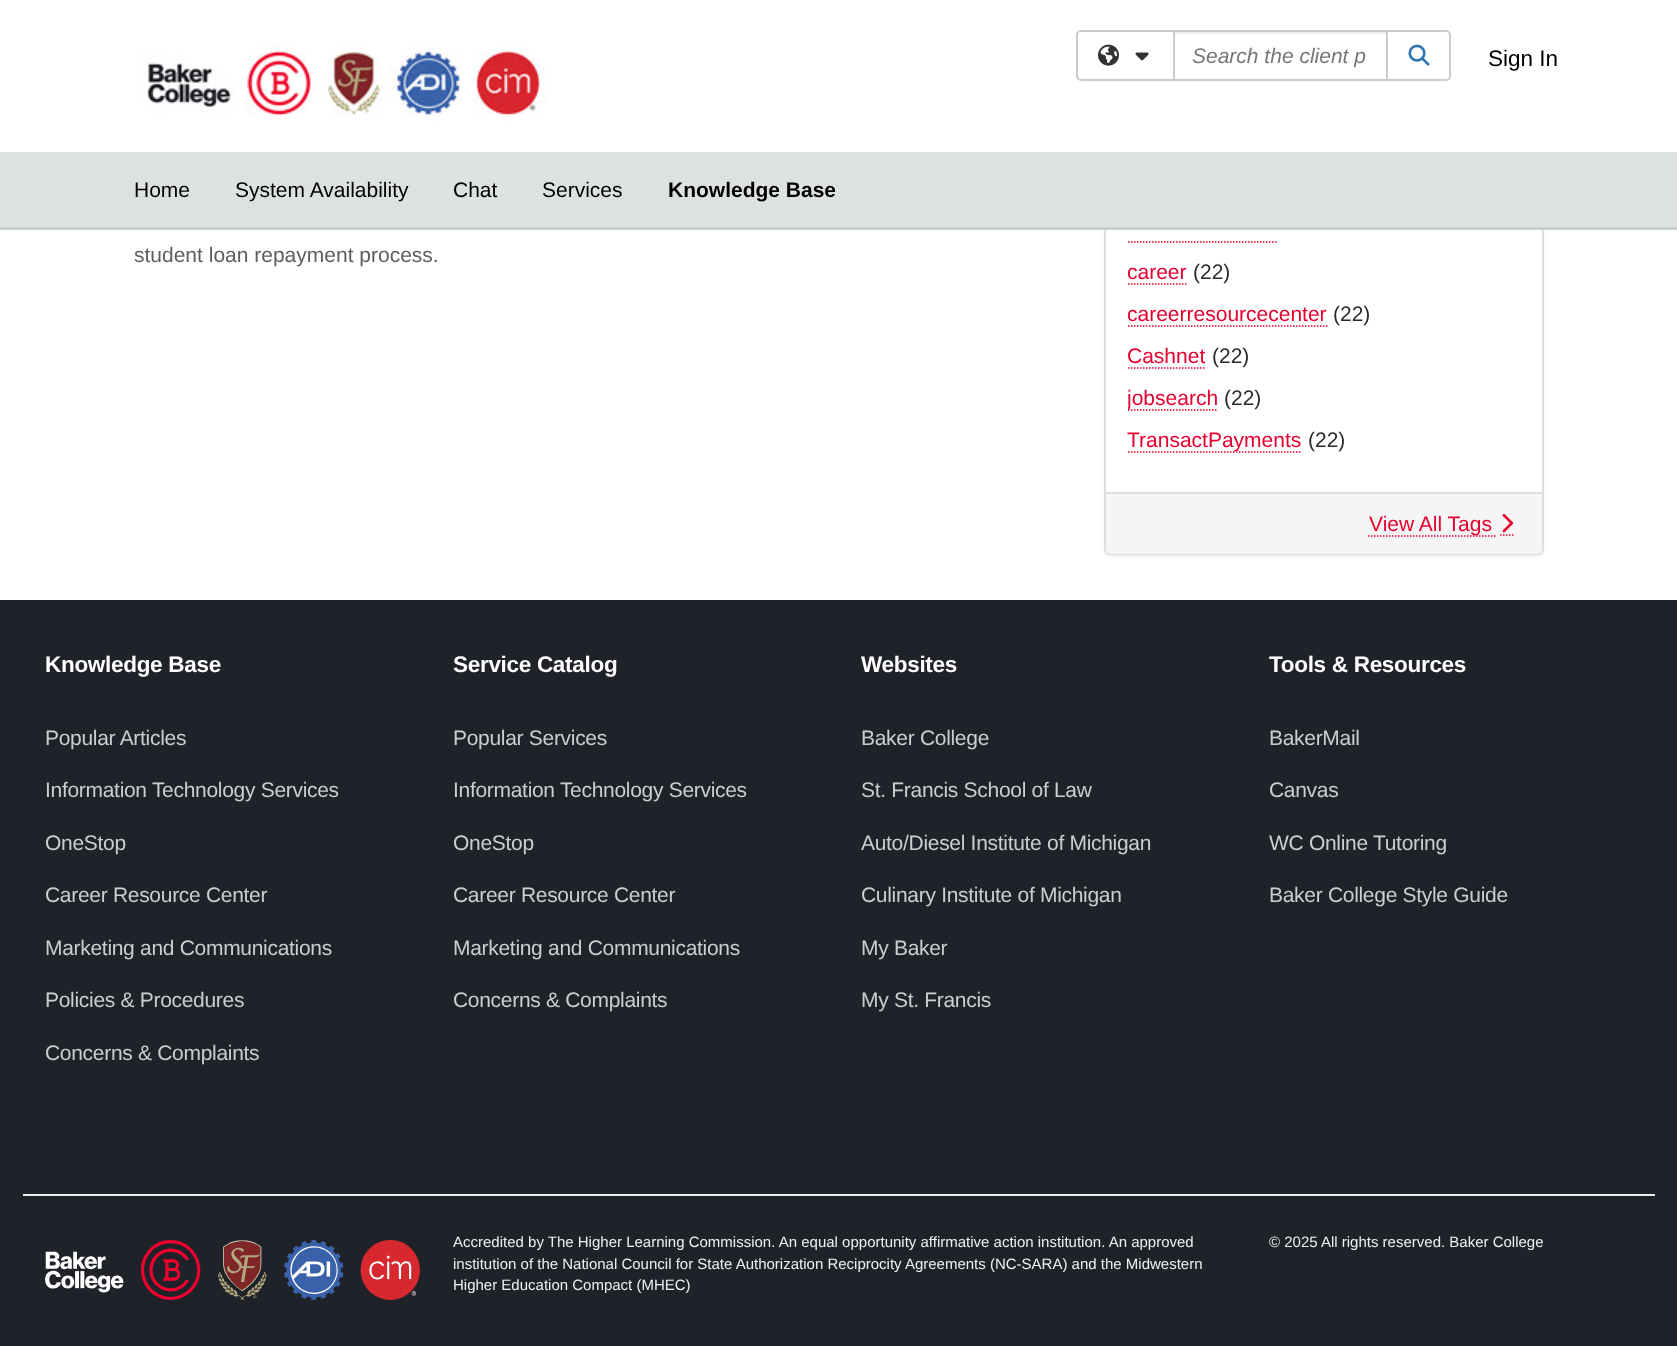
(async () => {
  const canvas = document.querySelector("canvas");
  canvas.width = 1677;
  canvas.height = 1346;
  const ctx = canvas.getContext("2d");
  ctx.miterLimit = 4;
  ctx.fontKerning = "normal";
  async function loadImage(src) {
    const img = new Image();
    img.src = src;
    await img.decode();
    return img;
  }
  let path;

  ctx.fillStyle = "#ffffff";
  ctx.fillRect(0, 0, 1677, 1346);
  ctx.fillStyle = "rgba(0, 0, 0, 0.05)";
  ctx.filter = "blur(1px)";
  ctx.beginPath();
  ctx.roundRect(1104, -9, 440, 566, 6);
  ctx.fill();
  ctx.filter = "none";
  ctx.fillStyle = "#ffffff";
  ctx.beginPath();
  ctx.roundRect(1105, -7, 438, 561, 5);
  ctx.fill();
  ctx.strokeStyle = "#dddddd";
  ctx.lineWidth = 2;
  ctx.stroke();
  ctx.fillRect(1103, 0, 442, 152);
  ctx.drawImage(await loadImage("img/1.png"), 138, 42, 408, 79);
  ctx.beginPath();
  ctx.roundRect(1077, 31, 97, 49, [4, 0, 0, 4]);
  ctx.strokeStyle = "#cccccc";
  ctx.stroke();
  ctx.drawImage(await loadImage("img/2.png"), 1098, 44, 21, 22);
  ctx.drawImage(await loadImage("img/3.png"), 1135, 52, 14, 9);
  ctx.fillStyle = "#ececec";
  ctx.fillRect(1175, 32, 211, 2);
  ctx.strokeRect(1174, 31, 213, 49);
  ctx.fillStyle = "#ffffff";
  ctx.beginPath();
  ctx.roundRect(1387, 31, 63, 49, [0, 4, 4, 0]);
  ctx.fill();
  ctx.stroke();
  ctx.drawImage(await loadImage("img/4.png"), 1408, 44, 22, 22);
  ctx.fillStyle = "#dee1e2";
  ctx.fillRect(0, 152, 1677, 75);
  ctx.fillStyle = "#c9ced1";
  ctx.fillRect(0, 227, 1677, 3);
  path = new Path2D("M1128 242H1278");
  ctx.strokeStyle = "#e7002e";
  ctx.lineWidth = 1.5;
  ctx.setLineDash([1.5, 1.5]);
  ctx.stroke(path);
  path = new Path2D("M1128 284H1186.5");
  ctx.stroke(path);
  path = new Path2D("M1128 326H1327.5");
  ctx.stroke(path);
  path = new Path2D("M1128 368H1206");
  ctx.stroke(path);
  path = new Path2D("M1128 410H1218");
  ctx.stroke(path);
  path = new Path2D("M1128 452H1302");
  ctx.stroke(path);
  ctx.fillStyle = "#f5f5f5";
  ctx.beginPath();
  ctx.roundRect(1106, 492, 436, 62, [0, 0, 5, 5]);
  ctx.fill();
  ctx.fillStyle = "#dddddd";
  ctx.fillRect(1106, 492, 436, 2);
  path = new Path2D("M1368 536H1497");
  ctx.stroke(path);
  path = new Path2D("M1500 535H1513.5");
  ctx.stroke(path);
  ctx.drawImage(await loadImage("img/5.png"), 1502, 514, 12, 19);
  ctx.fillStyle = "#1f2228";
  ctx.fillRect(0, 600, 1677, 746);
  ctx.fillStyle = "#edf0f0";
  ctx.fillRect(23, 1194, 1632, 2);
  ctx.drawImage(await loadImage("img/6.png"), 45, 1240, 375, 60);
  ctx.font = "italic 21px Liberation Sans";
  ctx.fillStyle = "#767676";
  ctx.fillText("Search the client p", 1192, 63);
  ctx.font = "22.5px Liberation Sans";
  ctx.fillStyle = "#000000";
  ctx.fillText("Sign In", 1488, 66);
  ctx.font = "21px Liberation Sans";
  for (const [text, x, y] of [
    ["Home", 134, 197],
    ["System Availability", 235, 197],
    ["Chat", 453, 197],
    ["Services", 542, 197],
  ]) {
    ctx.fillText(text, x, y);
  }
  ctx.font = "bold 21px Liberation Sans";
  ctx.fillText("Knowledge Base", 668, 197);
  ctx.font = "21px Liberation Sans";
  ctx.fillStyle = "#5e5e5e";
  ctx.fillText("student loan repayment process.", 134, 262);
  ctx.fillStyle = "#e7002e";
  ctx.fillText("career", 1127, 279);
  ctx.fillStyle = "#2b2b2b";
  ctx.fillText("(22)", 1193, 279);
  ctx.fillStyle = "#e7002e";
  ctx.fillText("careerresourcecenter", 1127, 321);
  ctx.fillStyle = "#2b2b2b";
  ctx.fillText("(22)", 1333, 321);
  ctx.fillStyle = "#e7002e";
  ctx.fillText("Cashnet", 1127, 363);
  ctx.fillStyle = "#2b2b2b";
  ctx.fillText("(22)", 1212, 363);
  ctx.save();
  ctx.beginPath();
  ctx.rect(1128, 383, 392, 30);
  ctx.clip();
  ctx.fillStyle = "#e7002e";
  ctx.fillText("jobsearch", 1127, 405);
  ctx.restore();
  ctx.fillText("(22)", 1224, 405);
  ctx.fillStyle = "#e7002e";
  ctx.fillText("TransactPayments", 1127, 447);
  ctx.fillStyle = "#2b2b2b";
  ctx.fillText("(22)", 1308, 447);
  ctx.fillStyle = "#e7002e";
  ctx.fillText("View All Tags", 1369, 531);
  ctx.letterSpacing = "-0.3px";
  ctx.font = "bold 22.5px Liberation Sans";
  ctx.fillStyle = "#ffffff";
  ctx.fillText("Knowledge Base", 45, 672);
  ctx.font = "21px Liberation Sans";
  ctx.fillStyle = "#c9ced1";
  for (const [text, x, y] of [
    ["Popular Articles", 45, 745],
    ["Information Technology Services", 45, 797],
    ["OneStop", 45, 850],
    ["Career Resource Center", 45, 902],
    ["Marketing and Communications", 45, 955],
    ["Policies & Procedures", 45, 1007],
    ["Concerns & Complaints", 45, 1060],
  ]) {
    ctx.fillText(text, x, y);
  }
  ctx.font = "bold 22.5px Liberation Sans";
  ctx.fillStyle = "#ffffff";
  ctx.fillText("Service Catalog", 453, 672);
  ctx.font = "21px Liberation Sans";
  ctx.fillStyle = "#c9ced1";
  for (const [text, x, y] of [
    ["Popular Services", 453, 745],
    ["Information Technology Services", 453, 797],
    ["OneStop", 453, 850],
    ["Career Resource Center", 453, 902],
    ["Marketing and Communications", 453, 955],
    ["Concerns & Complaints", 453, 1007],
  ]) {
    ctx.fillText(text, x, y);
  }
  ctx.font = "bold 22.5px Liberation Sans";
  ctx.fillStyle = "#ffffff";
  ctx.fillText("Websites", 861, 672);
  ctx.font = "21px Liberation Sans";
  ctx.fillStyle = "#c9ced1";
  for (const [text, x, y] of [
    ["Baker College", 861, 745],
    ["St. Francis School of Law", 861, 797],
    ["Auto/Diesel Institute of Michigan", 861, 850],
    ["Culinary Institute of Michigan", 861, 902],
    ["My Baker", 861, 955],
    ["My St. Francis", 861, 1007],
  ]) {
    ctx.fillText(text, x, y);
  }
  ctx.font = "bold 22.5px Liberation Sans";
  ctx.fillStyle = "#ffffff";
  ctx.fillText("Tools & Resources", 1269, 672);
  ctx.font = "21px Liberation Sans";
  ctx.fillStyle = "#c9ced1";
  for (const [text, x, y] of [
    ["BakerMail", 1269, 745],
    ["Canvas", 1269, 797],
    ["WC Online Tutoring", 1269, 850],
    ["Baker College Style Guide", 1269, 902],
  ]) {
    ctx.fillText(text, x, y);
  }
  ctx.letterSpacing = "0px";
  ctx.font = "15px Liberation Sans";
  ctx.fillStyle = "#edf0f0";
  for (const [text, x, y] of [
    ["Accredited by The Higher Learning Commission. An equal opportunity affirmative action institution. An approved", 453, 1247],
    ["institution of the National Council for State Authorization Reciprocity Agreements (NC-SARA) and the Midwestern", 453, 1269],
    ["Higher Education Compact (MHEC)", 453, 1290],
    ["© 2025 All rights reserved. Baker College", 1269, 1247],
  ]) {
    ctx.fillText(text, x, y);
  }
})();
